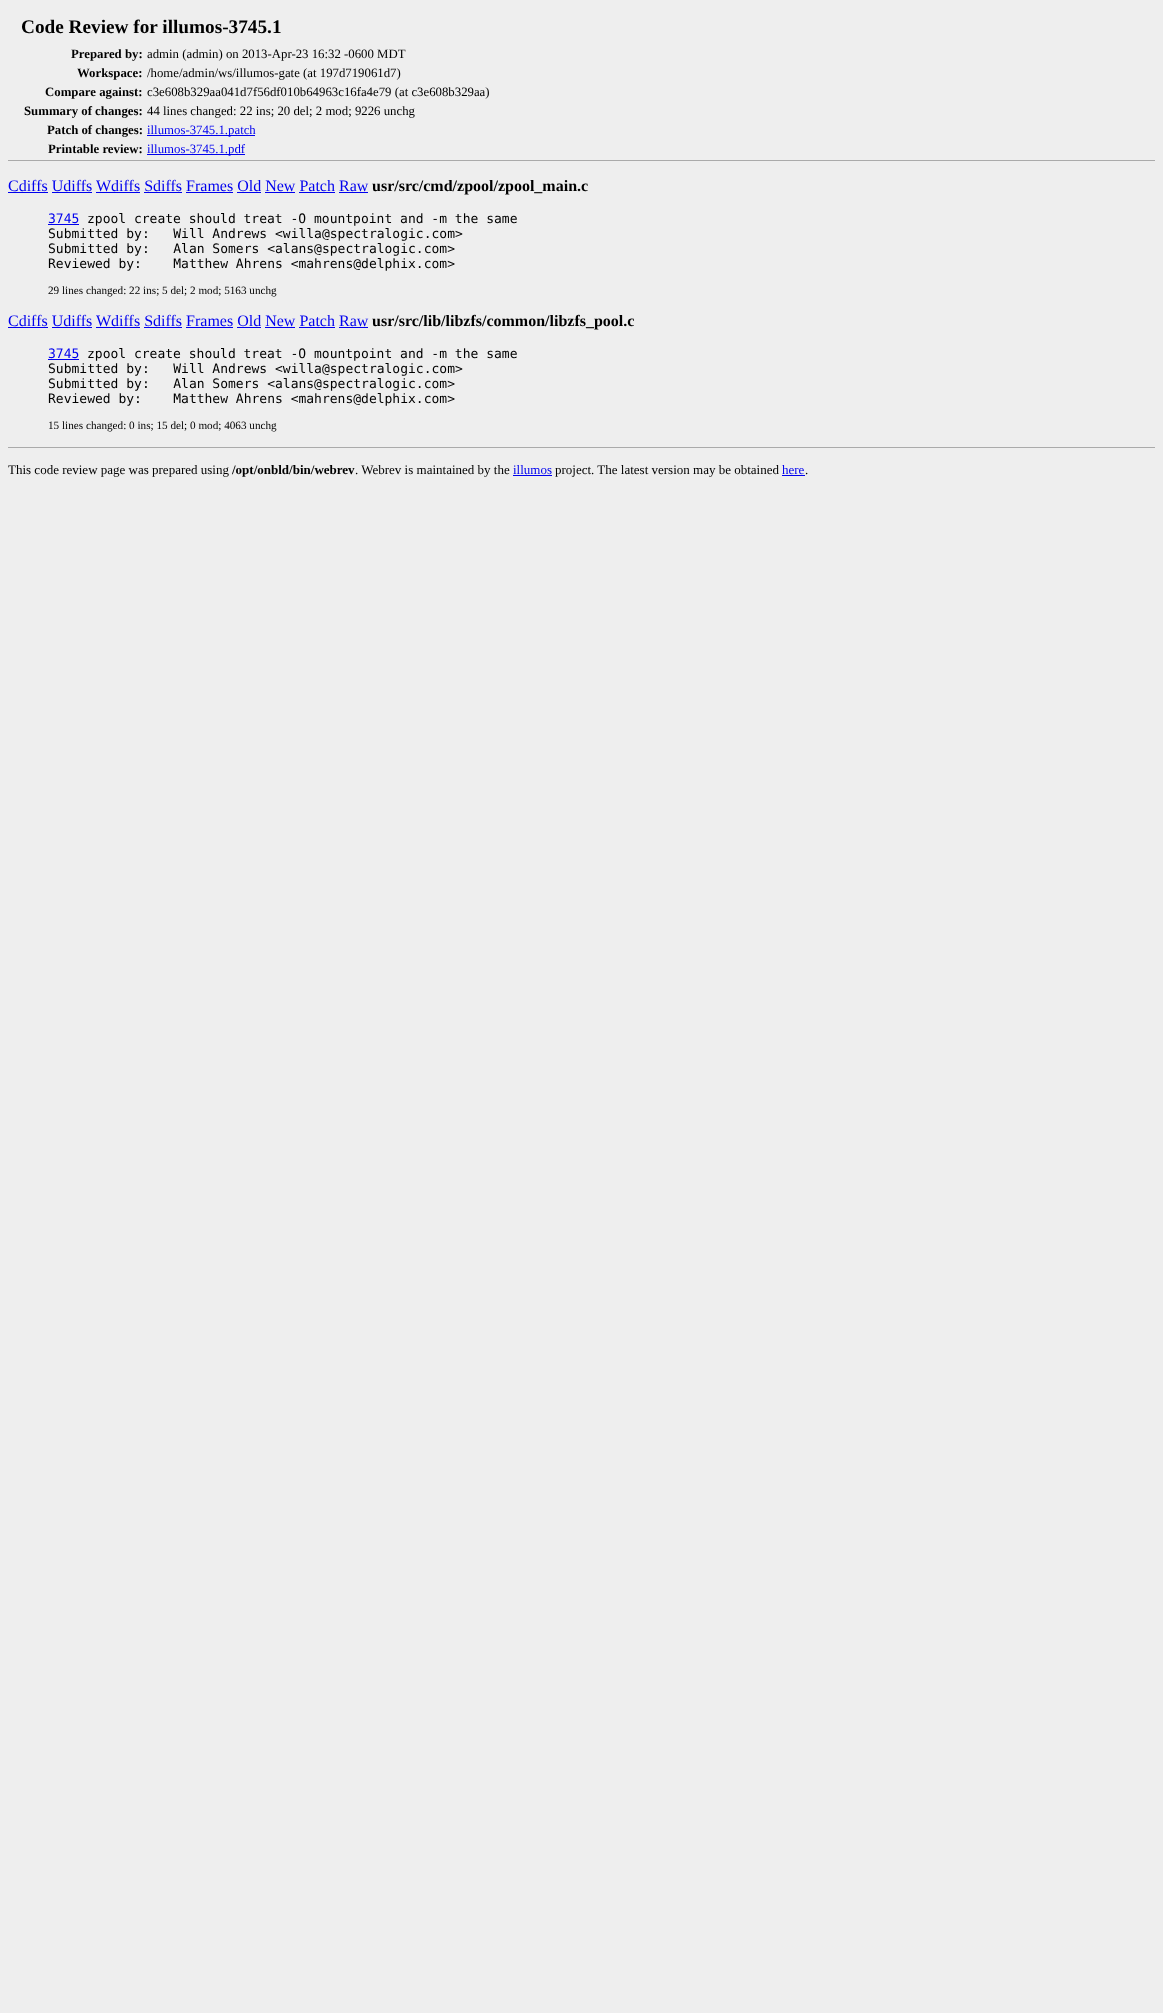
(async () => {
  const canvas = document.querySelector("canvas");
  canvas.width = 1163;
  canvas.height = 2013;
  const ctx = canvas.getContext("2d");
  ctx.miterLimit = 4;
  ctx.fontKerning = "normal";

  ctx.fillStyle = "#eeeeee";
  ctx.fillRect(0, 0, 1163, 2013);
  for (const [x, y, w, h, color] of [
    [8, 160, 1147, 1, "#aaaaaa"],
    [147, 135, 108, 1, "#0000ee"],
    [147, 154, 98, 1, "#0000ee"],
    [8, 192, 40, 1, "#0000ee"],
    [52, 192, 40, 1, "#0000ee"],
    [96, 192, 44, 1, "#0000ee"],
    [144, 192, 38, 1, "#0000ee"],
    [186, 192, 47, 1, "#0000ee"],
    [237, 192, 24, 1, "#0000ee"],
    [265, 192, 30, 1, "#0000ee"],
    [299, 192, 36, 1, "#0000ee"],
    [339, 192, 29, 1, "#0000ee"],
    [48, 224, 31, 1, "#0000ee"],
    [8, 327, 40, 1, "#0000ee"],
    [52, 327, 40, 1, "#0000ee"],
    [96, 327, 44, 1, "#0000ee"],
    [144, 327, 38, 1, "#0000ee"],
    [186, 327, 47, 1, "#0000ee"],
    [237, 327, 24, 1, "#0000ee"],
    [265, 327, 30, 1, "#0000ee"],
    [299, 327, 36, 1, "#0000ee"],
    [339, 327, 29, 1, "#0000ee"],
    [48, 359, 31, 1, "#0000ee"],
    [8, 447, 1147, 1, "#aaaaaa"],
    [513, 475, 39, 1, "#0000ee"],
    [782, 475, 23, 1, "#0000ee"],
  ]) {
    ctx.fillStyle = color;
    ctx.fillRect(x, y, w, h);
  }
  ctx.font = "bold 19.25px Liberation Serif";
  ctx.fillStyle = "#000000";
  ctx.fillText("Code Review for illumos-3745.1", 21, 33);
  ctx.font = "bold 12.8px Liberation Serif";
  ctx.fillText("Prepared by:", 71, 58);
  ctx.font = "12.8px Liberation Serif";
  ctx.fillText("admin (admin) on 2013-Apr-23 16:32 -0600 MDT", 147, 58);
  ctx.font = "bold 12.8px Liberation Serif";
  ctx.fillText("Workspace:", 77, 77);
  ctx.font = "12.8px Liberation Serif";
  ctx.fillText("/home/admin/ws/illumos-gate (at 197d719061d7)", 147, 77);
  ctx.font = "bold 12.8px Liberation Serif";
  ctx.fillText("Compare against:", 45, 96);
  ctx.font = "12.8px Liberation Serif";
  ctx.fillText("c3e608b329aa041d7f56df010b64963c16fa4e79 (at c3e608b329aa)", 147, 96);
  ctx.font = "bold 12.8px Liberation Serif";
  ctx.fillText("Summary of changes:", 24, 115);
  ctx.font = "12.8px Liberation Serif";
  ctx.fillText("44 lines changed: 22 ins; 20 del; 2 mod; 9226 unchg", 147, 115);
  ctx.font = "bold 12.8px Liberation Serif";
  ctx.fillText("Patch of changes:", 47, 134);
  ctx.font = "12.8px Liberation Serif";
  ctx.fillStyle = "#0000ee";
  ctx.fillText("illumos-3745.1.patch", 147, 134);
  ctx.font = "bold 12.8px Liberation Serif";
  ctx.fillStyle = "#000000";
  ctx.fillText("Printable review:", 48, 153);
  ctx.font = "12.8px Liberation Serif";
  ctx.fillStyle = "#0000ee";
  ctx.fillText("illumos-3745.1.pdf", 147, 153);
  ctx.font = "16px Liberation Serif";
  ctx.fillText("Cdiffs Udiffs Wdiffs Sdiffs Frames Old New Patch Raw", 8, 191);
  ctx.font = "bold 16px Liberation Serif";
  ctx.fillStyle = "#000000";
  ctx.fillText("usr/src/cmd/zpool/zpool_main.c", 372, 191);
  ctx.font = "13px DejaVu Sans Mono";
  ctx.fillStyle = "#0000ee";
  ctx.fillText("3745", 48, 223);
  ctx.fillStyle = "#000000";
  for (const [text, x, y] of [
    ["zpool create should treat -O mountpoint and -m the same", 87, 223],
    ["Submitted by:   Will Andrews <willa@spectralogic.com>", 48, 238],
    ["Submitted by:   Alan Somers <alans@spectralogic.com>", 48, 253],
    ["Reviewed by:    Matthew Ahrens <mahrens@delphix.com>", 48, 268],
  ]) {
    ctx.fillText(text, x, y);
  }
  ctx.font = "11.2px Liberation Serif";
  ctx.fillText("29 lines changed: 22 ins; 5 del; 2 mod; 5163 unchg", 48, 294);
  ctx.font = "16px Liberation Serif";
  ctx.fillStyle = "#0000ee";
  ctx.fillText("Cdiffs Udiffs Wdiffs Sdiffs Frames Old New Patch Raw", 8, 326);
  ctx.font = "bold 16px Liberation Serif";
  ctx.fillStyle = "#000000";
  ctx.fillText("usr/src/lib/libzfs/common/libzfs_pool.c", 372, 326);
  ctx.font = "13px DejaVu Sans Mono";
  ctx.fillStyle = "#0000ee";
  ctx.fillText("3745", 48, 358);
  ctx.fillStyle = "#000000";
  for (const [text, x, y] of [
    ["zpool create should treat -O mountpoint and -m the same", 87, 358],
    ["Submitted by:   Will Andrews <willa@spectralogic.com>", 48, 373],
    ["Submitted by:   Alan Somers <alans@spectralogic.com>", 48, 388],
    ["Reviewed by:    Matthew Ahrens <mahrens@delphix.com>", 48, 403],
  ]) {
    ctx.fillText(text, x, y);
  }
  ctx.font = "11.2px Liberation Serif";
  ctx.fillText("15 lines changed: 0 ins; 15 del; 0 mod; 4063 unchg", 48, 429);
  ctx.font = "13px Liberation Serif";
  ctx.fillText("This code review page was prepared using", 8, 474);
  ctx.font = "bold 13px Liberation Serif";
  ctx.fillText("/opt/onbld/bin/webrev", 232, 474);
  ctx.font = "13px Liberation Serif";
  ctx.fillText(". Webrev is maintained by the", 355, 474);
  ctx.fillStyle = "#0000ee";
  ctx.fillText("illumos", 513, 474);
  ctx.fillStyle = "#000000";
  ctx.fillText("project. The latest version may be obtained", 555, 474);
  ctx.fillStyle = "#0000ee";
  ctx.fillText("here", 782, 474);
  ctx.fillStyle = "#000000";
  ctx.fillText(".", 805, 474);
})();
